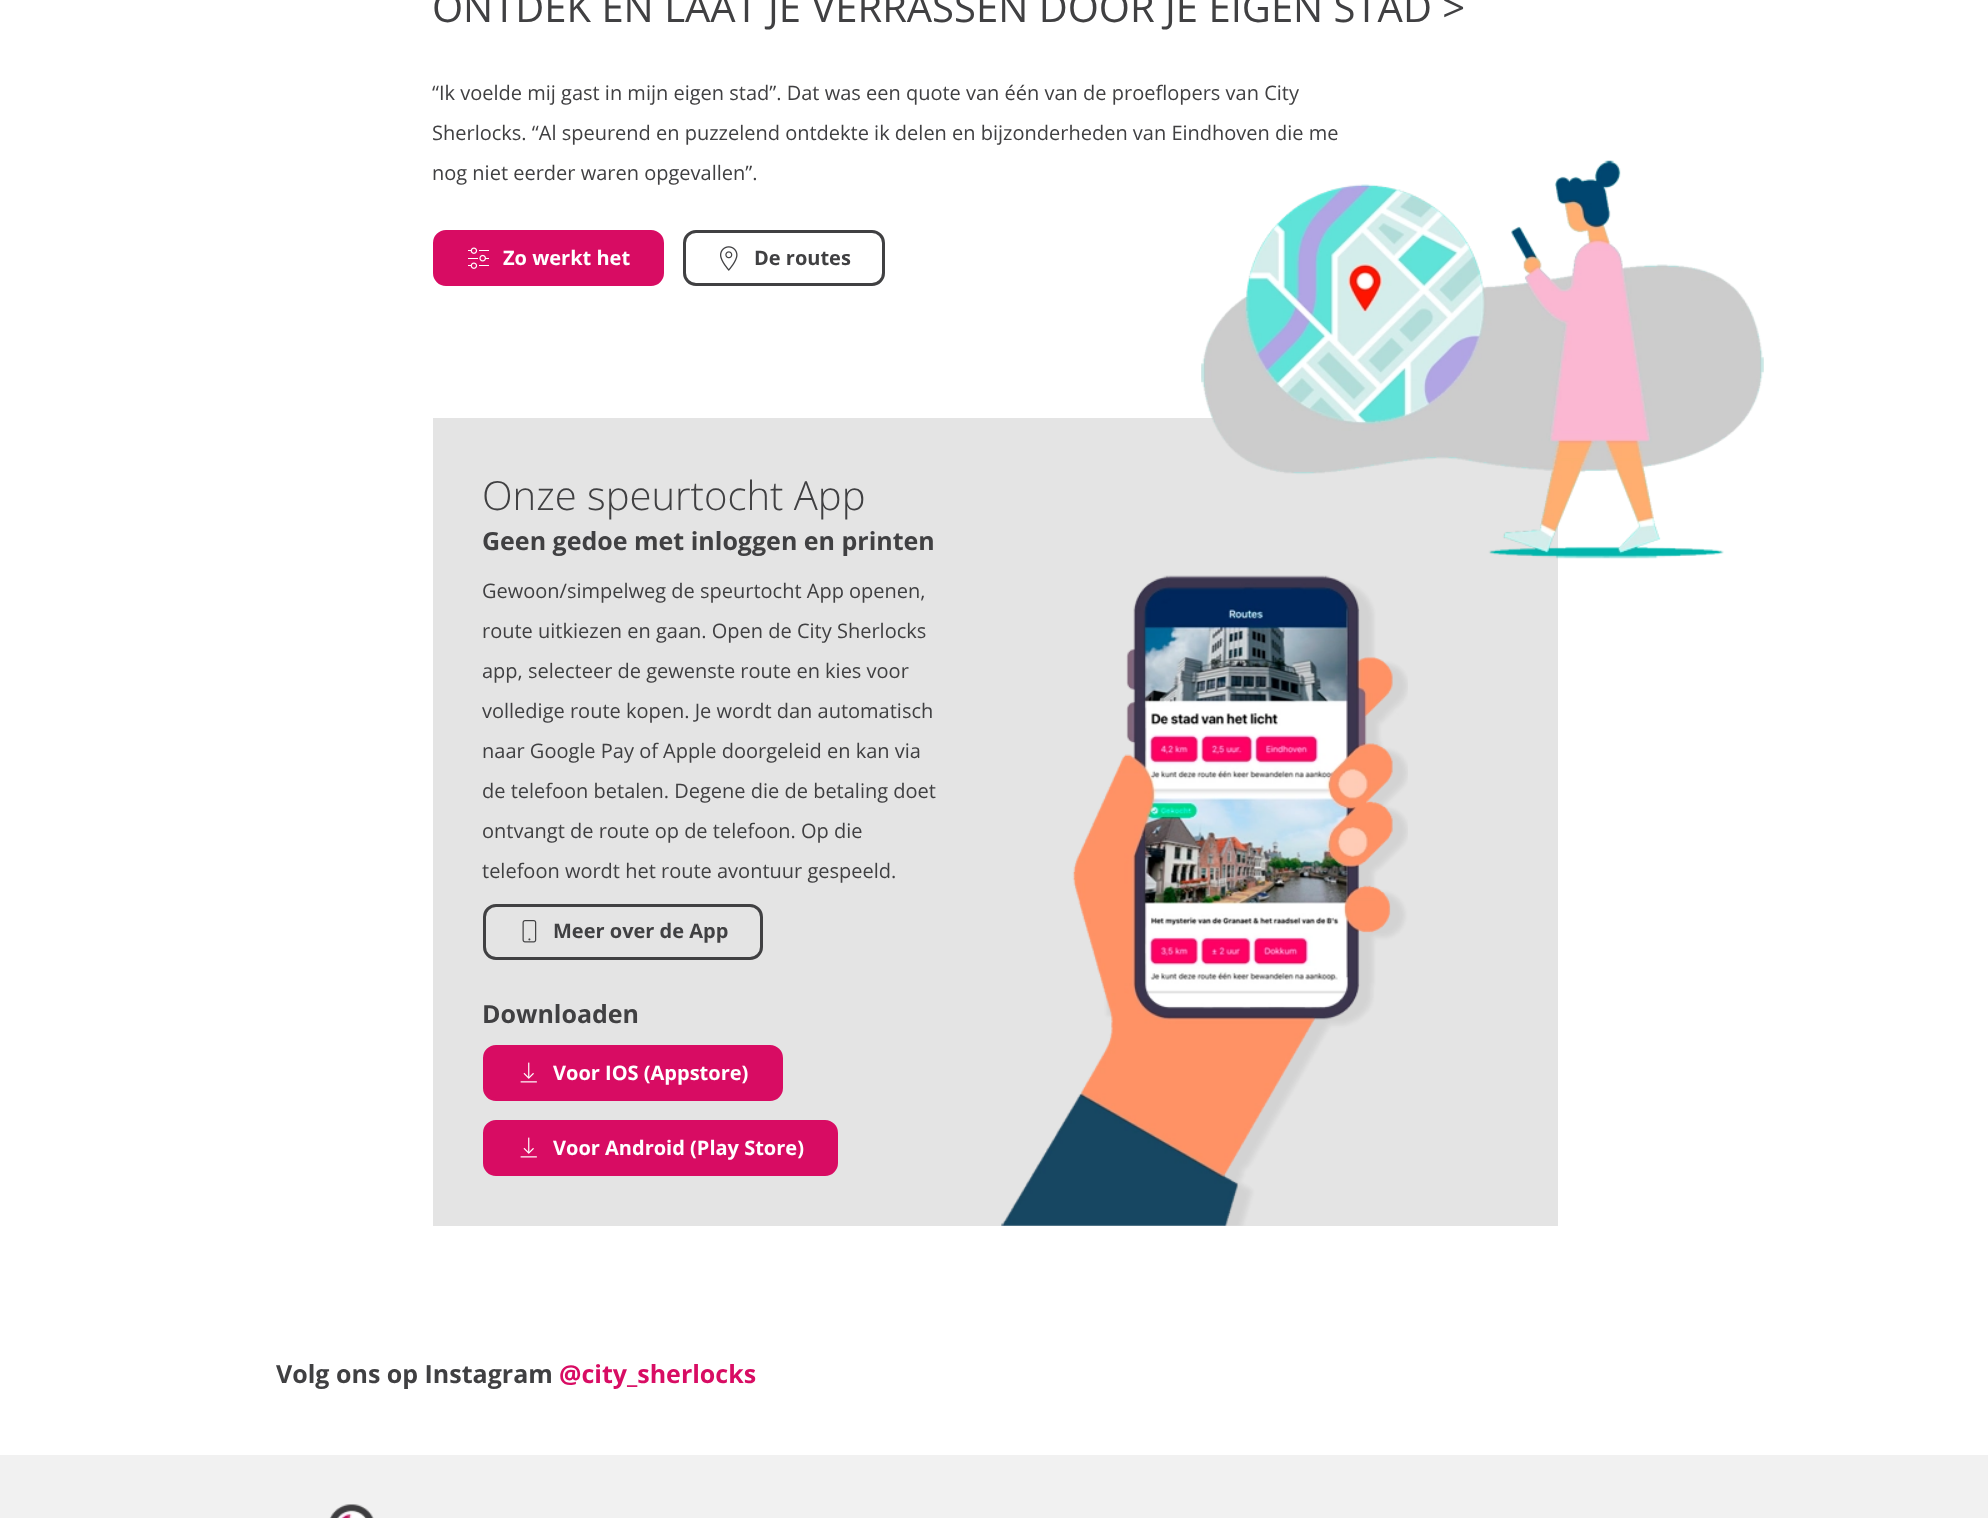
(async () => {
  const canvas = document.querySelector("canvas");
  canvas.width = 1988;
  canvas.height = 1518;
  const ctx = canvas.getContext("2d");
  ctx.miterLimit = 4;
  ctx.fontKerning = "normal";
  async function loadImage(src) {
    const img = new Image();
    img.src = src;
    await img.decode();
    return img;
  }

  ctx.fillStyle = "#ffffff";
  ctx.fillRect(0, 0, 1988, 1518);
  ctx.fillStyle = "#d80c63";
  ctx.beginPath();
  ctx.roundRect(434.5, 231.5, 228, 53, 11.5);
  ctx.fill();
  ctx.strokeStyle = "#d80c63";
  ctx.lineWidth = 3;
  ctx.stroke();
  ctx.drawImage(await loadImage("img/1.png"), 468, 247, 21, 22);
  ctx.beginPath();
  ctx.roundRect(684.5, 231.5, 199, 53, 11.5);
  ctx.strokeStyle = "#404042";
  ctx.stroke();
  ctx.drawImage(await loadImage("img/2.png"), 720, 246, 18, 25);
  ctx.fillStyle = "#e4e4e4";
  ctx.fillRect(433, 418, 1125, 808);
  ctx.drawImage(await loadImage("img/3.png"), 1201, 160, 563, 399);
  ctx.beginPath();
  ctx.roundRect(484.5, 905.5, 277, 53, 11.5);
  ctx.stroke();
  ctx.drawImage(await loadImage("img/4.png"), 522, 920, 15, 23);
  ctx.fillStyle = "#d80c63";
  ctx.beginPath();
  ctx.roundRect(484.5, 1046.5, 297, 53, 11.5);
  ctx.fill();
  ctx.strokeStyle = "#d80c63";
  ctx.stroke();
  ctx.drawImage(await loadImage("img/5.png"), 520, 1062, 17, 21);
  ctx.beginPath();
  ctx.roundRect(484.5, 1121.5, 352, 53, 11.5);
  ctx.fill();
  ctx.stroke();
  ctx.drawImage(await loadImage("img/5.png"), 520, 1137, 17, 21);
  ctx.drawImage(await loadImage("img/6.png"), 1001, 575, 407, 651);
  ctx.fillStyle = "#f1f1f1";
  ctx.fillRect(0, 1455, 1988, 63);
  ctx.drawImage(await loadImage("img/7.png"), 329, 1504, 45, 14);
  ctx.font = "40px Open Sans";
  ctx.fillStyle = "#404042";
  ctx.fillText("ONTDEK EN LAAT JE VERRASSEN DOOR JE EIGEN STAD >", 432, 22);
  ctx.font = "20px Open Sans";
  for (const [text, x, y] of [
    ["“Ik voelde mij gast in mijn eigen stad”. Dat was een quote van één van de proeflopers van City", 432, 100],
    ["Sherlocks. “Al speurend en puzzelend ontdekte ik delen en bijzonderheden van Eindhoven die me", 432, 140],
    ["nog niet eerder waren opgevallen”.", 432, 180],
  ]) {
    ctx.fillText(text, x, y);
  }
  ctx.font = "bold 20px Open Sans";
  ctx.fillStyle = "#ffffff";
  ctx.fillText("Zo werkt het", 503, 265);
  ctx.fillStyle = "#404042";
  ctx.fillText("De routes", 754, 265);
  ctx.font = "300 40px Open Sans";
  ctx.fillText("Onze speurtocht App", 482, 510);
  ctx.font = "bold 25px Open Sans";
  ctx.fillText("Geen gedoe met inloggen en printen", 482, 550);
  ctx.font = "20px Open Sans";
  for (const [text, x, y] of [
    ["Gewoon/simpelweg de speurtocht App openen,", 482, 598],
    ["route uitkiezen en gaan. Open de City Sherlocks", 482, 638],
    ["app, selecteer de gewenste route en kies voor", 482, 678],
    ["volledige route kopen. Je wordt dan automatisch", 482, 718],
    ["naar Google Pay of Apple doorgeleid en kan via", 482, 758],
    ["de telefoon betalen. Degene die de betaling doet", 482, 798],
    ["ontvangt de route op de telefoon. Op die", 482, 838],
    ["telefoon wordt het route avontuur gespeeld.", 482, 878],
  ]) {
    ctx.fillText(text, x, y);
  }
  ctx.font = "bold 20px Open Sans";
  ctx.fillText("Meer over de App", 553, 938);
  ctx.font = "bold 25px Open Sans";
  ctx.fillText("Downloaden", 482, 1023);
  ctx.font = "bold 20px Open Sans";
  ctx.fillStyle = "#ffffff";
  ctx.fillText("Voor IOS (Appstore)", 553, 1080);
  ctx.fillText("Voor Android (Play Store)", 553, 1155);
  ctx.font = "bold 25px Open Sans";
  ctx.fillStyle = "#404042";
  ctx.fillText("Volg ons op Instagram", 276, 1383);
  ctx.fillStyle = "#d80c63";
  ctx.fillText("@city_sherlocks", 559, 1383);
})();
